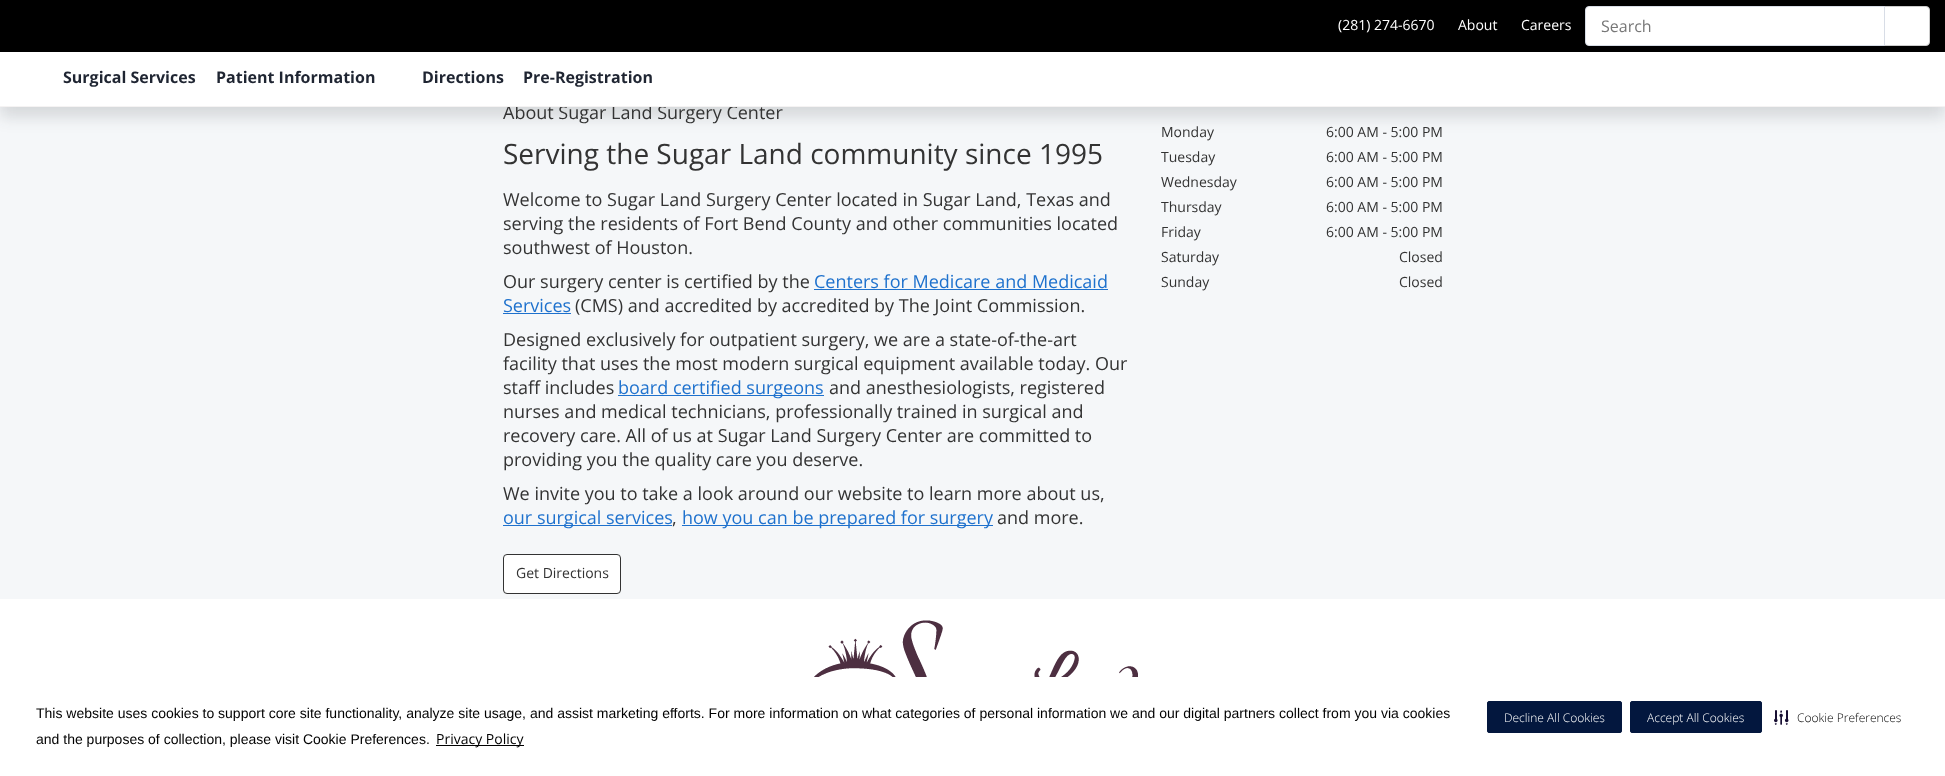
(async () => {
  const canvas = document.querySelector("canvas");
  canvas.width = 1945;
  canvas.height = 776;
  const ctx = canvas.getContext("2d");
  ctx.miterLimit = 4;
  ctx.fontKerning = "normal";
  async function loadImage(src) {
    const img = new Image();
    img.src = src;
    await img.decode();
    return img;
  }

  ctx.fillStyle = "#f5f7f9";
  ctx.fillRect(0, 0, 1945, 776);
  ctx.fillStyle = "rgba(31, 37, 50, 0.15)";
  ctx.filter = "blur(8px)";
  ctx.beginPath();
  ctx.rect(0, 10, 1945, 107);
  ctx.fill();
  ctx.filter = "none";
  ctx.fillStyle = "#000000";
  ctx.fillRect(0, 0, 1945, 52);
  ctx.fillStyle = "#ffffff";
  ctx.beginPath();
  ctx.roundRect(1884.5, 6.5, 45, 39, [0, 3.5, 3.5, 0]);
  ctx.fill();
  ctx.strokeStyle = "#cccccc";
  ctx.stroke();
  ctx.beginPath();
  ctx.roundRect(1585.5, 6.5, 299, 39, [3.5, 0, 0, 3.5]);
  ctx.fill();
  ctx.strokeStyle = "#d8dde6";
  ctx.stroke();
  for (const [x, y, w, h, color] of [
    [814, 289, 294, 1, "#1e71cd"],
    [503, 313, 68, 1, "#1e71cd"],
    [618, 395, 206, 1, "#1e71cd"],
    [503, 525, 169, 1, "#1e71cd"],
    [682, 525, 311, 1, "#1e71cd"],
  ]) {
    ctx.fillStyle = color;
    ctx.fillRect(x, y, w, h);
  }
  ctx.fillStyle = "#ffffff";
  ctx.beginPath();
  ctx.roundRect(503.5, 554.5, 117, 39, 3.5);
  ctx.fill();
  ctx.strokeStyle = "#333333";
  ctx.stroke();
  ctx.fillRect(0, 599, 1945, 177);
  ctx.drawImage(await loadImage("img/1.png"), 814, 620, 324, 57);
  ctx.fillStyle = "#000000";
  ctx.fillRect(436, 745, 88, 1);
  ctx.fillStyle = "#03173e";
  ctx.beginPath();
  ctx.roundRect(1487.5, 701.5, 134, 31, 1.5);
  ctx.fill();
  ctx.strokeStyle = "#03173e";
  ctx.stroke();
  ctx.beginPath();
  ctx.roundRect(1630.5, 701.5, 131, 31, 1.5);
  ctx.fill();
  ctx.stroke();
  ctx.drawImage(await loadImage("img/2.png"), 1774, 710, 15, 15);
  ctx.font = "14px Open Sans";
  ctx.fillStyle = "#ffffff";
  for (const [text, x, y] of [
    ["(281) 274-6670", 1338, 30],
    ["About", 1458, 30],
    ["Careers", 1521, 30],
  ]) {
    ctx.fillText(text, x, y);
  }
  ctx.font = "16px Open Sans";
  ctx.fillStyle = "#777777";
  ctx.fillText("Search", 1601, 32);
  ctx.font = "18px Open Sans";
  ctx.fillStyle = "#333333";
  ctx.fillText("About Sugar Land Surgery Center", 503, 119);
  ctx.fillStyle = "#ffffff";
  ctx.fillRect(0, 52, 1945, 54);
  ctx.font = "bold 16px Open Sans";
  ctx.fillStyle = "#1f2532";
  for (const [text, x, y] of [
    ["Pre-Registration", 523, 83],
    ["Directions", 422, 83],
    ["Patient Information", 216, 83],
    ["Surgical Services", 63, 83],
  ]) {
    ctx.fillText(text, x, y);
  }
  ctx.fillStyle = "#f5f3f3";
  ctx.fillRect(0, 106, 1945, 1);
  ctx.font = "28px Open Sans";
  ctx.fillStyle = "#333333";
  ctx.fillText("Serving the Sugar Land community since 1995", 503, 164);
  ctx.font = "18px Open Sans";
  for (const [text, x, y] of [
    ["Welcome to Sugar Land Surgery Center located in Sugar Land, Texas and", 503, 206],
    ["serving the residents of Fort Bend County and other communities located", 503, 230],
    ["southwest of Houston.", 503, 254],
    ["Our surgery center is certified by the", 503, 288],
  ]) {
    ctx.fillText(text, x, y);
  }
  ctx.fillStyle = "#1e71cd";
  ctx.fillText("Centers for Medicare and Medicaid", 814, 288);
  ctx.fillText("Services", 503, 312);
  ctx.fillStyle = "#333333";
  for (const [text, x, y] of [
    ["(CMS) and accredited by accredited by The Joint Commission.", 575, 312],
    ["Designed exclusively for outpatient surgery, we are a state-of-the-art", 503, 346],
    ["facility that uses the most modern surgical equipment available today. Our", 503, 370],
    ["staff includes", 503, 394],
  ]) {
    ctx.fillText(text, x, y);
  }
  ctx.fillStyle = "#1e71cd";
  ctx.fillText("board certified surgeons", 618, 394);
  ctx.fillStyle = "#333333";
  for (const [text, x, y] of [
    ["and anesthesiologists, registered", 829, 394],
    ["nurses and medical technicians, professionally trained in surgical and", 503, 418],
    ["recovery care. All of us at Sugar Land Surgery Center are committed to", 503, 442],
    ["providing you the quality care you deserve.", 503, 466],
    ["We invite you to take a look around our website to learn more about us,", 503, 500],
  ]) {
    ctx.fillText(text, x, y);
  }
  ctx.fillStyle = "#1e71cd";
  ctx.fillText("our surgical services", 503, 524);
  ctx.fillStyle = "#333333";
  ctx.fillText(",", 672, 524);
  ctx.fillStyle = "#1e71cd";
  ctx.fillText("how you can be prepared for surgery", 682, 524);
  ctx.fillStyle = "#333333";
  ctx.fillText("and more.", 997, 524);
  ctx.font = "14px Open Sans";
  for (const [text, x, y] of [
    ["Get Directions", 516, 578],
    ["Monday", 1161, 137],
    ["6:00 AM - 5:00 PM", 1326, 137],
    ["Tuesday", 1161, 162],
    ["6:00 AM - 5:00 PM", 1326, 162],
    ["Wednesday", 1161, 187],
    ["6:00 AM - 5:00 PM", 1326, 187],
    ["Thursday", 1161, 212],
    ["6:00 AM - 5:00 PM", 1326, 212],
    ["Friday", 1161, 237],
    ["6:00 AM - 5:00 PM", 1326, 237],
    ["Saturday", 1161, 262],
    ["Closed", 1399, 262],
    ["Sunday", 1161, 287],
    ["Closed", 1399, 287],
  ]) {
    ctx.fillText(text, x, y);
  }
  ctx.font = "14px Liberation Sans";
  ctx.fillStyle = "#000000";
  ctx.fillText("This website uses cookies to support core site functionality, analyze site usage, and assist marketing efforts. For more information on what categories of personal information we and our digital partners collect from you via cookies", 36, 718);
  ctx.fillText("and the purposes of collection, please visit Cookie Preferences.", 36, 744);
  ctx.font = "14px Open Sans";
  ctx.fillText("Privacy Policy", 436, 744);
  ctx.font = "300 12px Open Sans";
  ctx.fillStyle = "#ffffff";
  ctx.fillText("Decline All Cookies", 1504, 722);
  ctx.fillText("Accept All Cookies", 1647, 722);
  ctx.fillStyle = "#000000";
  ctx.fillText("Cookie Preferences", 1797, 722);
})();
